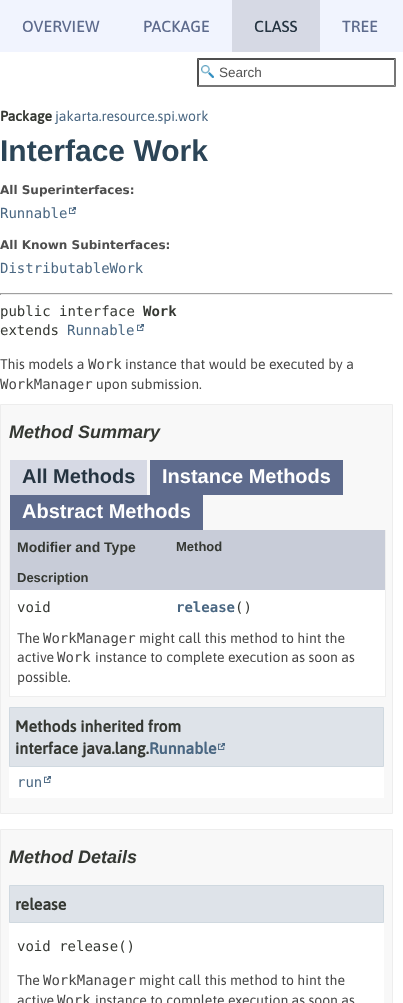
async function draw(canvas) {
  canvas.width = 403;
  canvas.height = 1003;
  const ctx = canvas.getContext('2d');
  ctx.miterLimit = 4;
  ctx.fontKerning = 'normal';
  function label(s, x, y, font, color) {
    ctx.font = font;
    ctx.fillStyle = color;
    ctx.fillText(s, x, y);
  }
  function rect(x, y, w, h, color) {
    ctx.fillStyle = color;
    ctx.fillRect(x, y, w, h);
  }
  async function image(src, x, y, w, h) {
    const img = new Image();
    img.src = src;
    await img.decode();
    ctx.drawImage(img, x, y, w, h);
  }
  let path;

  rect(0, 0, 403, 1003, '#fff');
  rect(0, 0, 403, 52, '#f1f4fe');
  label('OVERVIEW', 22, 32, '500 16px Asap', '#5e6b8d');
  label('PACKAGE', 143, 32, '500 16px Asap', '#5e6b8d');
  rect(232, 0, 88, 52, '#d6d9e4');
  label('CLASS', 254, 32, '500 16px Asap', '#253441');
  label('TREE', 342, 32, '500 16px Asap', '#5e6b8d');
  await image('assets/img1.png', 201, 65, 13, 13);
  ctx.fillStyle = '#4f4f4f';
  path = new Path2D('M197 58H396L394 60H199Z');
  ctx.fill(path);
  ctx.fillStyle = '#767676';
  path = new Path2D('M396 58V87L394 85V60Z');
  ctx.fill(path);
  path = new Path2D('M396 87H197L199 85H394Z');
  ctx.fill(path);
  ctx.fillStyle = '#4f4f4f';
  path = new Path2D('M197 87V58L199 60V85Z');
  ctx.fill(path);
  label('Search', 219, 77, '13.5px Liberation Sans', '#545454');
  label('Package', 0, 121, 'bold 14px Asap', '#353833');
  label('jakarta.resource.spi.work', 55, 121, '14px Asap', '#4a6782');
  label('Interface Work', 0, 161, 'bold 30px Liberation Sans', '#2c4557');
  label('All Superinterfaces:', 0, 194, 'bold 12px DejaVu Sans', '#4e4e4e');
  label('Runnable', 0, 218, '14px DejaVu Sans Mono', '#4a6782');
  await image('assets/img2.png', 69, 207, 7, 7);
  label('All Known Subinterfaces:', 0, 249, 'bold 12px DejaVu Sans', '#4e4e4e');
  label('DistributableWork', 0, 273, '14px DejaVu Sans Mono', '#4a6782');
  rect(0, 293, 393, 1, '#9f9f9f');
  rect(392, 293, 1, 2, '#eee');
  rect(0, 294, 393, 1, '#eee');
  rect(0, 293, 1, 2, '#9f9f9f');
  label('public interface', 0, 316, '14px DejaVu Sans Mono', '#353833');
  label('Work', 143, 316, 'bold 14px DejaVu Sans Mono', '#353833');
  label('extends', 0, 335, '14px DejaVu Sans Mono', '#353833');
  label('Runnable', 67, 335, '14px DejaVu Sans Mono', '#4a6782');
  await image('assets/img2.png', 137, 324, 7, 7);
  label('This models a', 0, 369, '14px Asap', '#474747');
  label('Work', 88, 369, '14px DejaVu Sans Mono', '#474747');
  label('instance that would be executed by a', 125, 369, '14px Asap', '#474747');
  label('WorkManager', 0, 389, '14px DejaVu Sans Mono', '#474747');
  label('upon submission.', 96, 389, '14px Asap', '#474747');
  ctx.fillStyle = '#f8f8f8';
  ctx.beginPath();
  ctx.rect(0.5, 404.5, 392, 409);
  ctx.fill();
  ctx.strokeStyle = '#ededed';
  ctx.stroke();
  label('Method Summary', 9, 438, 'italic bold 18px Liberation Sans', '#353833');
  rect(10, 460, 137, 35, '#d6d9e4');
  label('All Methods', 22, 483, 'bold 20px Liberation Sans', '#253441');
  rect(150, 460, 193, 35, '#5e6b8d');
  label('Instance Methods', 162, 483, 'bold 20px Liberation Sans', '#fff');
  rect(10, 495, 193, 35, '#5e6b8d');
  label('Abstract Methods', 22, 518, 'bold 20px Liberation Sans', '#fff');
  rect(385, 530, 1, 167, '#eee');
  rect(9, 696, 377, 1, '#eee');
  rect(9, 530, 1, 167, '#eee');
  rect(10, 530, 375, 31, '#c8ccd8');
  label('Modifier and Type', 17, 552, 'bold 14px Liberation Sans', '#353833');
  label('Method', 176, 551, 'bold 13px Liberation Sans', '#353833');
  rect(10, 561, 375, 29, '#c8ccd8');
  label('Description', 17, 582, 'bold 13px Liberation Sans', '#353833');
  rect(10, 590, 375, 31, '#fff');
  label('void', 17, 612, '14px DejaVu Sans Mono', '#353833');
  label('release', 176, 612, 'bold 14px DejaVu Sans Mono', '#4a6782');
  label('()', 235, 612, '14px DejaVu Sans Mono', '#353833');
  rect(10, 621, 375, 75, '#fff');
  label('The', 17, 643, '14px Asap', '#474747');
  label('WorkManager', 43, 643, '14px DejaVu Sans Mono', '#474747');
  label('might call this method to hint the', 139, 643, '14px Asap', '#474747');
  label('active', 17, 662, '14px Asap', '#474747');
  label('Work', 57, 662, '14px DejaVu Sans Mono', '#474747');
  label('instance to complete execution as soon as', 95, 662, '14px Asap', '#474747');
  label('possible.', 17, 682, '14px Asap', '#474747');
  rect(9, 767, 375, 31, '#fff');
  ctx.fillStyle = '#dee3e9';
  ctx.beginPath();
  ctx.rect(9.5, 707.5, 374, 59);
  ctx.fill();
  ctx.strokeStyle = '#d0d9e0';
  ctx.stroke();
  label('Methods inherited from', 15, 732, 'bold 16px Asap', '#353833');
  label('interface java.lang.', 15, 754, 'bold 16px Asap', '#353833');
  label('Runnable', 149, 754, 'bold 16px Asap', '#4a6782');
  await image('assets/img3.png', 218, 743, 7, 7);
  label('run', 17, 787, '14px DejaVu Sans Mono', '#4a6782');
  await image('assets/img2.png', 44, 776, 7, 7);
  ctx.fillStyle = '#f8f8f8';
  ctx.beginPath();
  ctx.rect(0.5, 829.5, 392, 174);
  ctx.fill();
  ctx.strokeStyle = '#ededed';
  ctx.stroke();
  label('Method Details', 9, 863, 'italic bold 18px Liberation Sans', '#353833');
  rect(9, 923, 375, 80, '#fff');
  ctx.fillStyle = '#dee3e9';
  ctx.beginPath();
  ctx.rect(9.5, 885.5, 374, 37);
  ctx.fill();
  ctx.strokeStyle = '#d0d9e0';
  ctx.stroke();
  label('release', 15, 910, 'bold 16px Asap', '#353833');
  label('void release()', 17, 951, '14px DejaVu Sans Mono', '#353833');
  label('The', 17, 985, '14px Asap', '#474747');
  label('WorkManager', 43, 985, '14px DejaVu Sans Mono', '#474747');
  label('might call this method to hint the', 139, 985, '14px Asap', '#474747');
  label('active', 17, 1005, '14px Asap', '#474747');
  label('Work', 57, 1005, '14px DejaVu Sans Mono', '#474747');
  label('instance to complete execution as soon as', 95, 1005, '14px Asap', '#474747');
}

draw(document.querySelector('canvas'));
